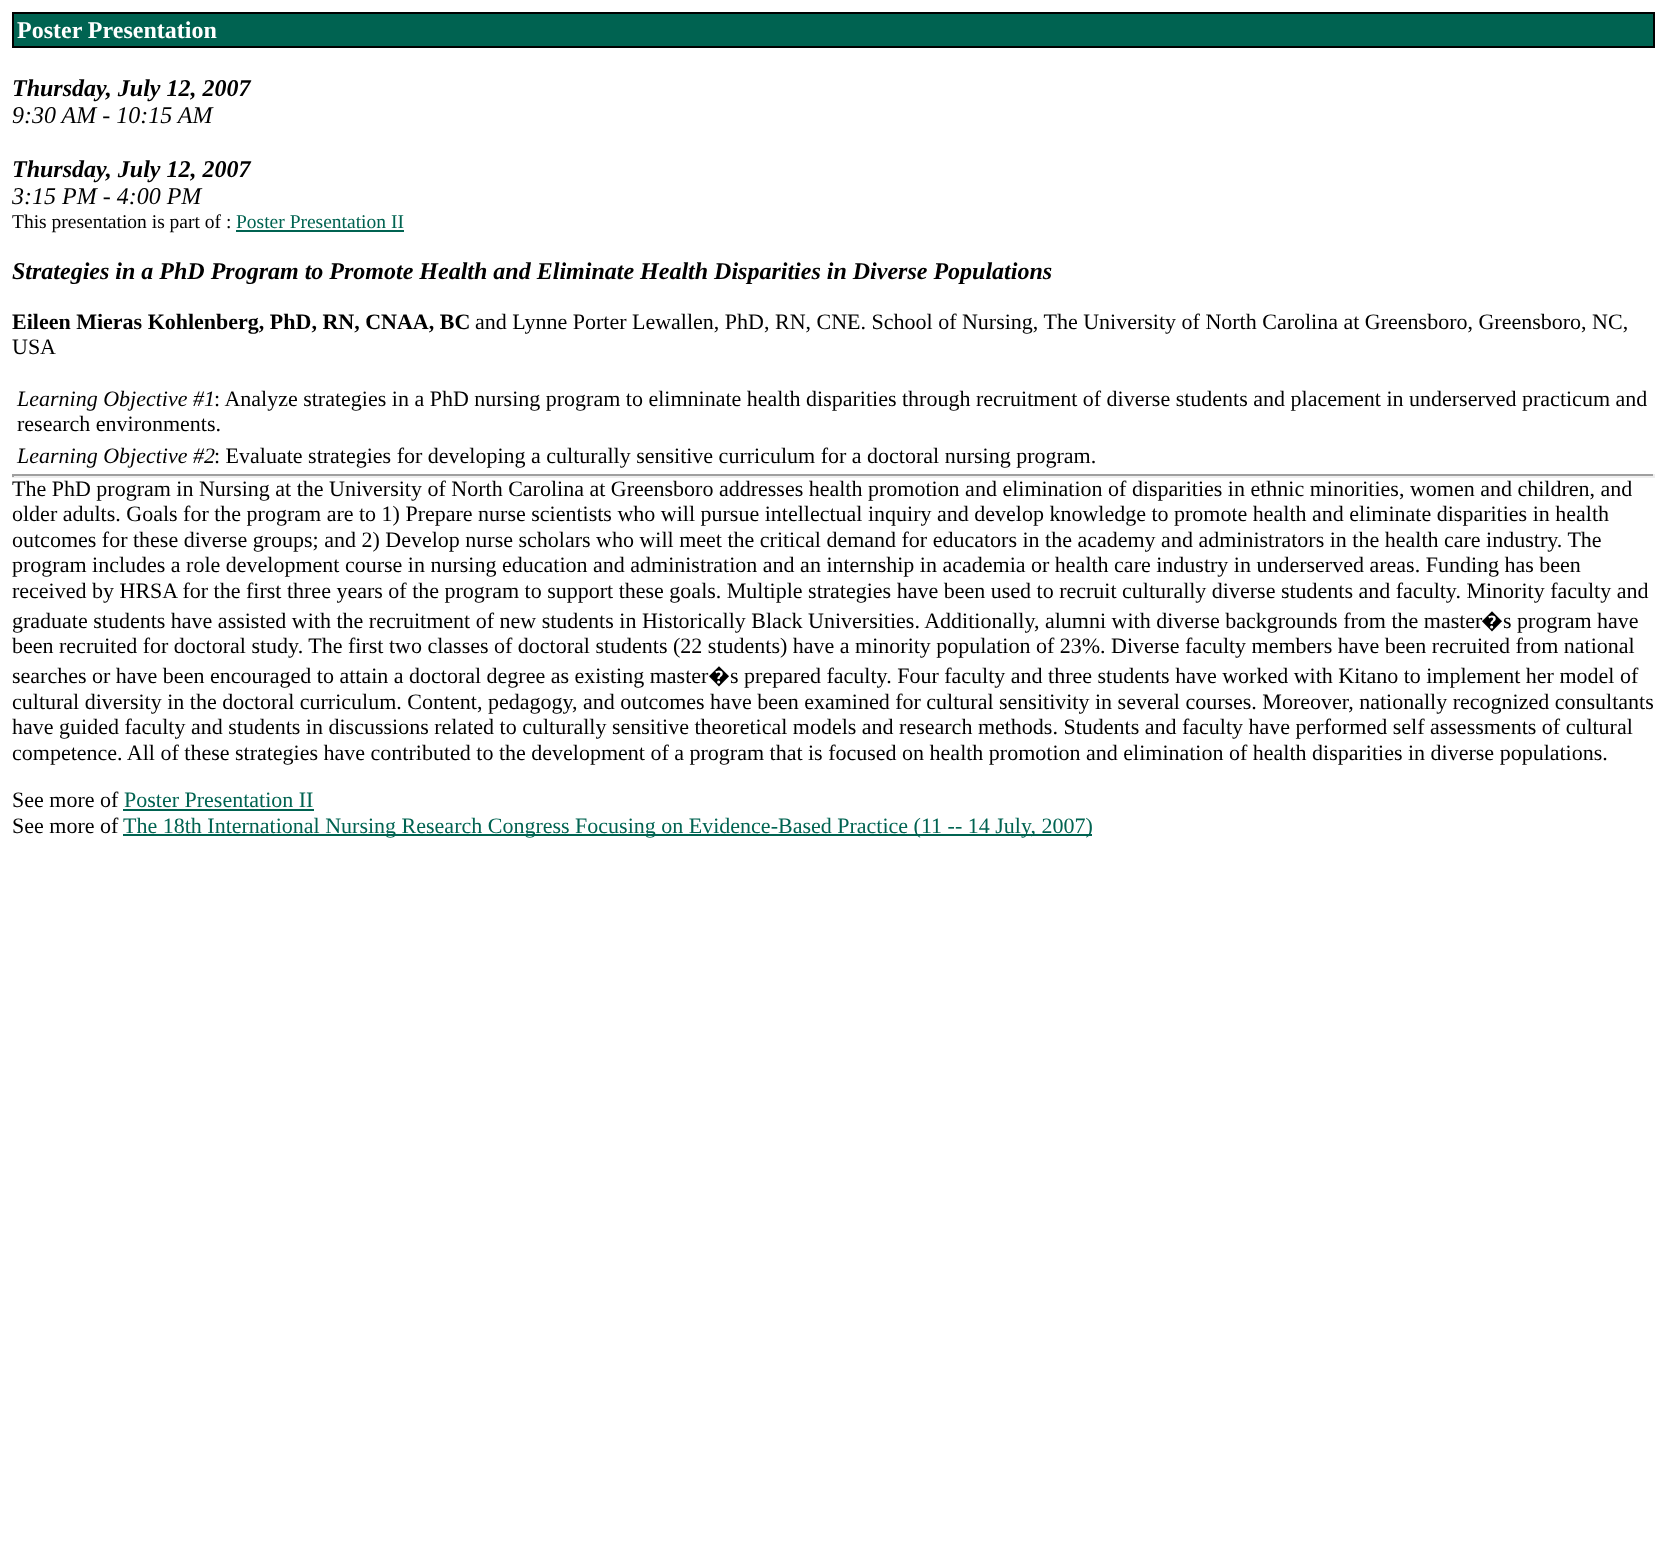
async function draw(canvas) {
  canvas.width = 1666;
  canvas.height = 1544;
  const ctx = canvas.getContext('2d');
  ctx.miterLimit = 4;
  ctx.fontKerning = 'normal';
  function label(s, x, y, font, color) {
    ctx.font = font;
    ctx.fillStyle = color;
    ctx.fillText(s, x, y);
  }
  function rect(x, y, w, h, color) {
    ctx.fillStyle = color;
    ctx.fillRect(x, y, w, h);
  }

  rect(0, 0, 1666, 1544, '#fff');
  ctx.fillStyle = '#006351';
  ctx.beginPath();
  ctx.rect(13, 13, 1641, 34);
  ctx.fill();
  ctx.strokeStyle = '#000';
  ctx.lineWidth = 2;
  ctx.stroke();
  label('Poster Presentation', 17, 38, 'bold 24px Liberation Serif', '#fff');
  label('Thursday, July 12, 2007', 12, 96, 'italic bold 24px Liberation Serif', '#000');
  label('9:30 AM - 10:15 AM', 12, 123, 'italic 24px Liberation Serif', '#000');
  label('Thursday, July 12, 2007', 12, 177, 'italic bold 24px Liberation Serif', '#000');
  label('3:15 PM - 4:00 PM', 12, 204, 'italic 24px Liberation Serif', '#000');
  label('This presentation is part of :', 12, 228, '19.5px Liberation Serif', '#000');
  label('Poster Presentation II', 236, 228, '19.5px Liberation Serif', '#006351');
  rect(236, 230, 168, 2, '#006351');
  label('Strategies in a PhD Program to Promote Health and Eliminate Health Disparities in Diverse Populations', 12, 279, 'italic bold 24px Liberation Serif', '#000');
  label('Eileen Mieras Kohlenberg, PhD, RN, CNAA, BC', 12, 329, 'bold 22px Liberation Serif', '#000');
  label('and Lynne Porter Lewallen, PhD, RN, CNE. School of Nursing, The University of North Carolina at Greensboro, Greensboro, NC,', 475, 329, '22px Liberation Serif', '#000');
  label('USA', 12, 354, '22px Liberation Serif', '#000');
  label('Learning Objective #1', 17, 406, 'italic 22px Liberation Serif', '#000');
  label(': Analyze strategies in a PhD nursing program to elimninate health disparities through recruitment of diverse students and placement in underserved practicum and', 214, 406, '22px Liberation Serif', '#000');
  label('research environments.', 17, 431, '22px Liberation Serif', '#000');
  label('Learning Objective #2', 17, 463, 'italic 22px Liberation Serif', '#000');
  label(': Evaluate strategies for developing a culturally sensitive curriculum for a doctoral nursing program.', 214, 463, '22px Liberation Serif', '#000');
  rect(12, 474, 1643, 2, '#9f9f9f');
  rect(1653, 474, 2, 3, '#eee');
  rect(12, 476, 1643, 2, '#eee');
  rect(12, 474, 2, 3, '#9f9f9f');
  label('The PhD program in Nursing at the University of North Carolina at Greensboro addresses health promotion and elimination of disparities in ethnic minorities, women and children, and', 12, 496, '22px Liberation Serif', '#000');
  label('older adults. Goals for the program are to 1) Prepare nurse scientists who will pursue intellectual inquiry and develop knowledge to promote health and eliminate disparities in health', 12, 521, '22px Liberation Serif', '#000');
  label('outcomes for these diverse groups; and 2) Develop nurse scholars who will meet the critical demand for educators in the academy and administrators in the health care industry. The', 12, 547, '22px Liberation Serif', '#000');
  label('program includes a role development course in nursing education and administration and an internship in academia or health care industry in underserved areas. Funding has been', 12, 572, '22px Liberation Serif', '#000');
  label('received by HRSA for the first three years of the program to support these goals. Multiple strategies have been used to recruit culturally diverse students and faculty. Minority faculty and', 12, 598, '22px Liberation Serif', '#000');
  label('graduate students have assisted with the recruitment of new students in Historically Black Universities. Additionally, alumni with diverse backgrounds from the master', 12, 628, '22px Liberation Serif', '#000');
  label('�', 1481, 628, '22px Noto Sans', '#000');
  label('s program have', 1503, 628, '22px Liberation Serif', '#000');
  label('been recruited for doctoral study. The first two classes of doctoral students (22 students) have a minority population of 23%. Diverse faculty members have been recruited from national', 12, 653, '22px Liberation Serif', '#000');
  label('searches or have been encouraged to attain a doctoral degree as existing master', 12, 683, '22px Liberation Serif', '#000');
  label('�', 708, 683, '22px Noto Sans', '#000');
  label('s prepared faculty. Four faculty and three students have worked with Kitano to implement her model of', 730, 683, '22px Liberation Serif', '#000');
  label('cultural diversity in the doctoral curriculum. Content, pedagogy, and outcomes have been examined for cultural sensitivity in several courses. Moreover, nationally recognized consultants', 12, 709, '22px Liberation Serif', '#000');
  label('have guided faculty and students in discussions related to culturally sensitive theoretical models and research methods. Students and faculty have performed self assessments of cultural', 12, 734, '22px Liberation Serif', '#000');
  label('competence. All of these strategies have contributed to the development of a program that is focused on health promotion and elimination of health disparities in diverse populations.', 12, 760, '22px Liberation Serif', '#000');
  label('See more of', 12, 807, '22px Liberation Serif', '#000');
  label('Poster Presentation II', 124, 807, '22px Liberation Serif', '#006351');
  rect(123, 809, 191, 2, '#006351');
  label('See more of', 12, 833, '22px Liberation Serif', '#000');
  rect(123, 834, 969, 2, '#006351');
  label('The 18th International Nursing Research Congress Focusing on Evidence-Based Practice (11 -- 14 July, 2007)', 123, 833, '22px Liberation Serif', '#006351');
}

draw(document.querySelector('canvas'));
